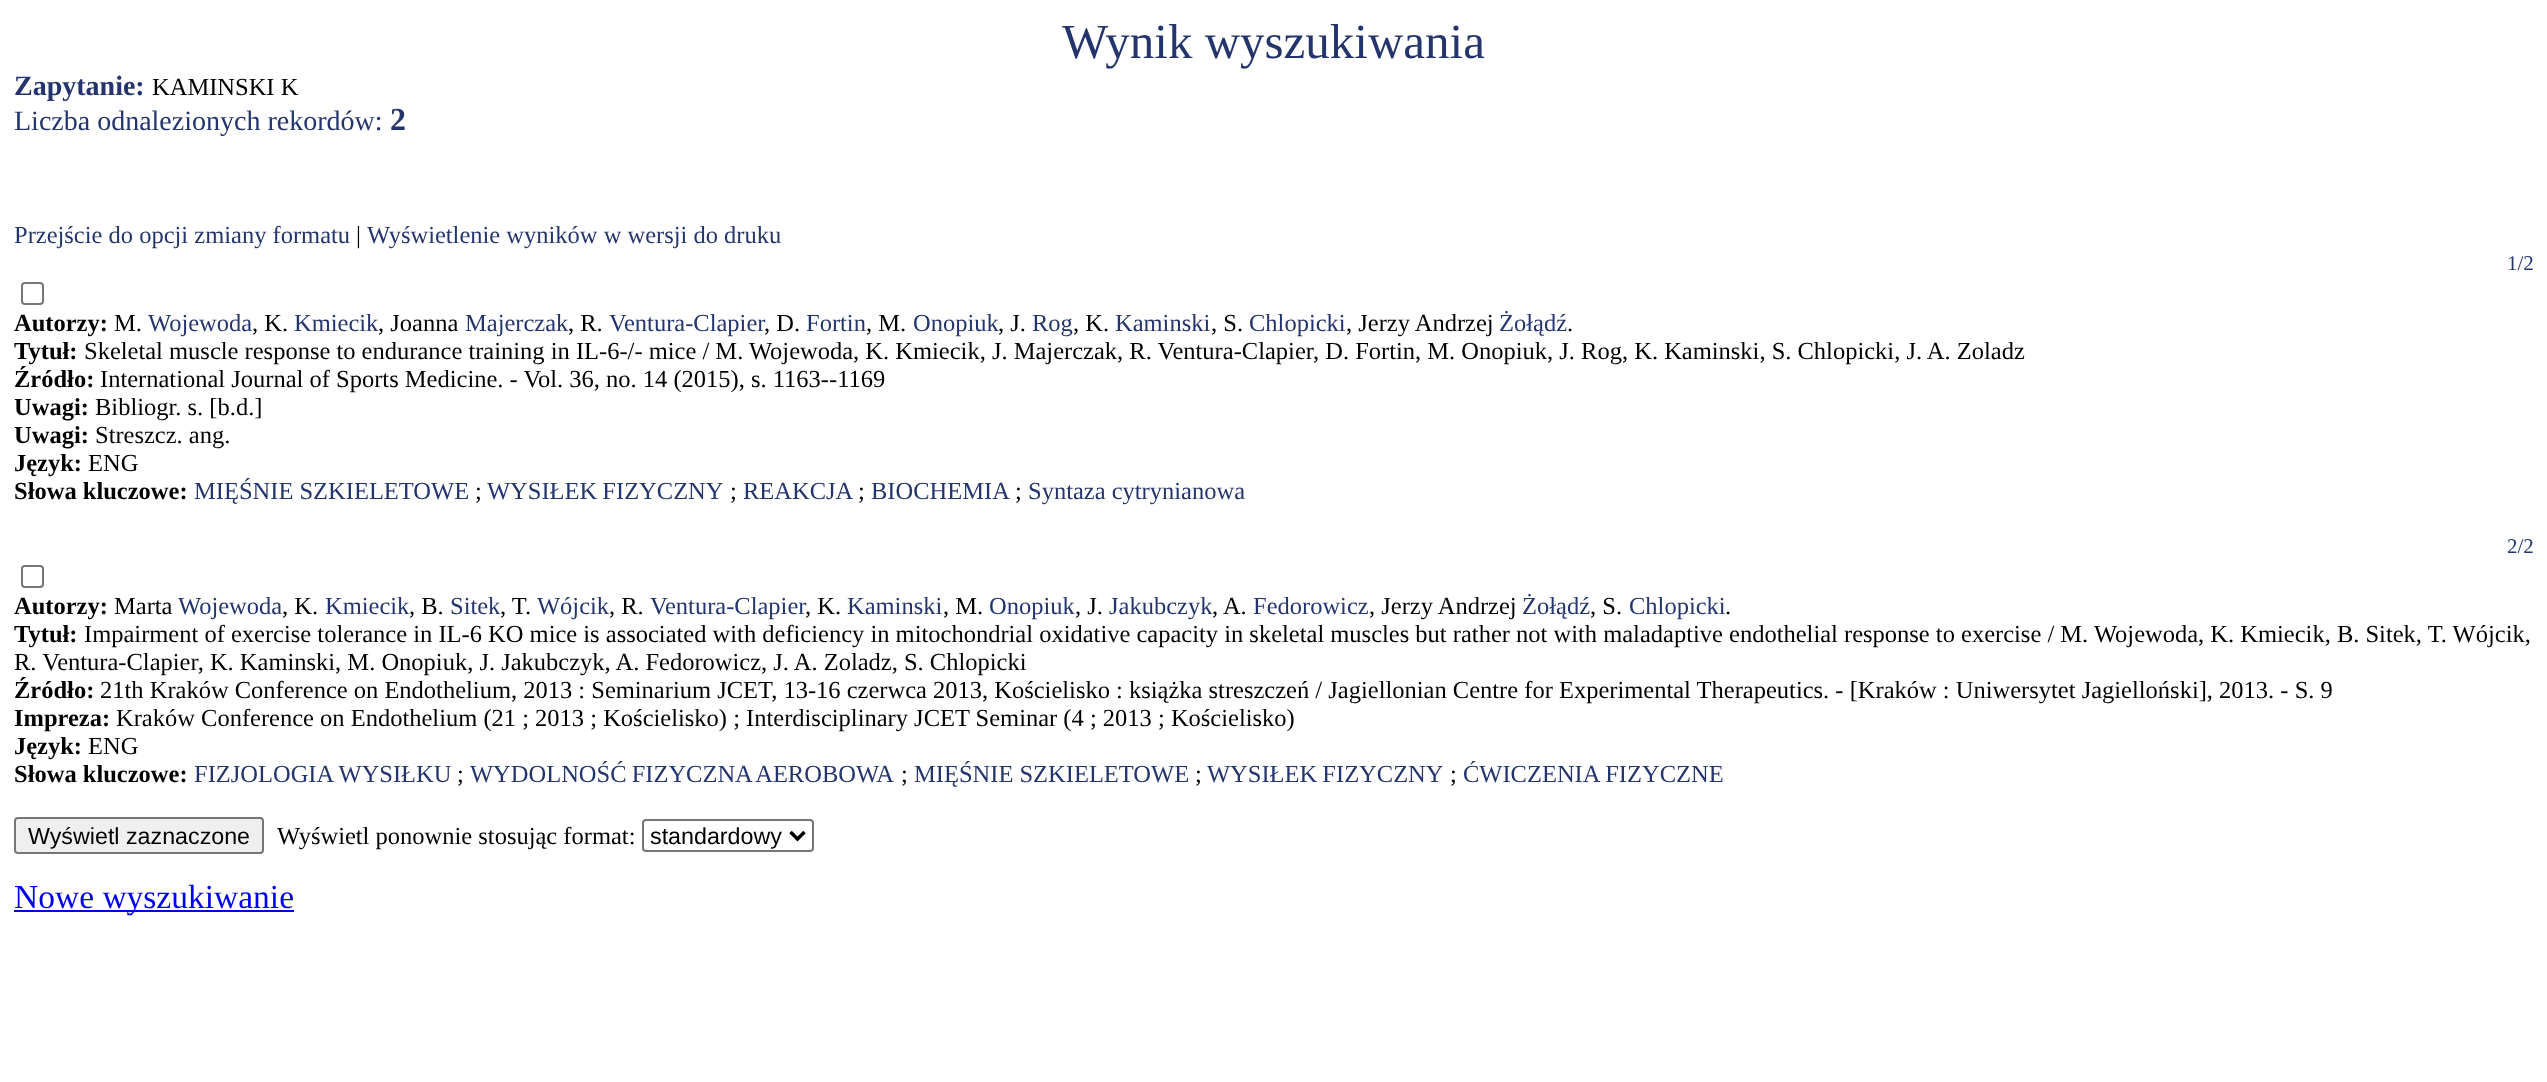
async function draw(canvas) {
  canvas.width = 2547;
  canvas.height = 1082;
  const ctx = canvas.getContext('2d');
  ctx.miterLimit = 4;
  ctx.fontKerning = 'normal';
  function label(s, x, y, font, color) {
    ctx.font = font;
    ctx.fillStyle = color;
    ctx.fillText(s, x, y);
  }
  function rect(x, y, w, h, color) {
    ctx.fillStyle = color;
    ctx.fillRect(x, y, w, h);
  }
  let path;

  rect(0, 0, 2547, 1082, '#fff');
  label('Wynik wyszukiwania', 1062, 58, '49px Liberation Serif', '#24356d');
  label('Zapytanie:', 14, 95, 'bold 28px Liberation Serif', '#24356d');
  label('KAMINSKI K', 152, 95, '24.5px Liberation Serif', '#000');
  label('Liczba odnalezionych rekordów:', 14, 130, '28px Liberation Serif', '#24356d');
  label('2', 390, 130, 'bold 32px Liberation Serif', '#24356d');
  label('Przejście do opcji zmiany formatu', 14, 243, '24.5px Liberation Serif', '#24356d');
  label('|', 356, 243, '24.5px Liberation Serif', '#000');
  label('Wyświetlenie wyników w wersji do druku', 367, 243, '24.5px Liberation Serif', '#24356d');
  label('1/2', 2507, 270, '21px Liberation Serif', '#24356d');
  ctx.beginPath();
  ctx.roundRect(22, 283, 21, 21, 3);
  ctx.strokeStyle = '#767676';
  ctx.lineWidth = 2;
  ctx.stroke();
  label('Autorzy:', 14, 331, 'bold 24.5px Liberation Serif', '#000');
  label('M.', 114, 331, '24.5px Liberation Serif', '#000');
  label('Wojewoda', 148, 331, '24.5px Liberation Serif', '#24356d');
  label(', K.', 252, 331, '24.5px Liberation Serif', '#000');
  label('Kmiecik', 294, 331, '24.5px Liberation Serif', '#24356d');
  label(', Joanna', 378, 331, '24.5px Liberation Serif', '#000');
  label('Majerczak', 465, 331, '24.5px Liberation Serif', '#24356d');
  label(', R.', 568, 331, '24.5px Liberation Serif', '#000');
  label('Ventura-Clapier', 609, 331, '24.5px Liberation Serif', '#24356d');
  label(', D.', 764, 331, '24.5px Liberation Serif', '#000');
  label('Fortin', 806, 331, '24.5px Liberation Serif', '#24356d');
  label(', M.', 866, 331, '24.5px Liberation Serif', '#000');
  label('Onopiuk', 913, 331, '24.5px Liberation Serif', '#24356d');
  label(', J.', 998, 331, '24.5px Liberation Serif', '#000');
  label('Rog', 1032, 331, '24.5px Liberation Serif', '#24356d');
  label(', K.', 1073, 331, '24.5px Liberation Serif', '#000');
  label('Kaminski', 1115, 331, '24.5px Liberation Serif', '#24356d');
  label(', S.', 1211, 331, '24.5px Liberation Serif', '#000');
  label('Chlopicki', 1249, 331, '24.5px Liberation Serif', '#24356d');
  label(', Jerzy Andrzej', 1346, 331, '24.5px Liberation Serif', '#000');
  label('Żołądź', 1499, 331, '24.5px Liberation Serif', '#24356d');
  label('.', 1567, 331, '24.5px Liberation Serif', '#000');
  label('Tytuł:', 14, 359, 'bold 24.5px Liberation Serif', '#000');
  label('Skeletal muscle response to endurance training in IL-6-/- mice / M. Wojewoda, K. Kmiecik, J. Majerczak, R. Ventura-Clapier, D. Fortin, M. Onopiuk, J. Rog, K. Kaminski, S. Chlopicki, J. A. Zoladz', 84, 359, '24.5px Liberation Serif', '#000');
  label('Źródło:', 14, 387, 'bold 24.5px Liberation Serif', '#000');
  label('International Journal of Sports Medicine. - Vol. 36, no. 14 (2015), s. 1163--1169', 100, 387, '24.5px Liberation Serif', '#000');
  label('Uwagi:', 14, 415, 'bold 24.5px Liberation Serif', '#000');
  label('Bibliogr. s. [b.d.]', 95, 415, '24.5px Liberation Serif', '#000');
  label('Uwagi:', 14, 443, 'bold 24.5px Liberation Serif', '#000');
  label('Streszcz. ang.', 95, 443, '24.5px Liberation Serif', '#000');
  label('Język:', 14, 471, 'bold 24.5px Liberation Serif', '#000');
  label('ENG', 88, 471, '24.5px Liberation Serif', '#000');
  label('Słowa kluczowe:', 14, 499, 'bold 24.5px Liberation Serif', '#000');
  label('MIĘŚNIE SZKIELETOWE', 194, 499, '24.5px Liberation Serif', '#24356d');
  label(';', 475, 499, '24.5px Liberation Serif', '#000');
  ctx.wordSpacing = '-1px';
  label('WYSIŁEK FIZYCZNY', 487, 499, '24.5px Liberation Serif', '#24356d');
  ctx.wordSpacing = '0px';
  label(';', 730, 499, '24.5px Liberation Serif', '#000');
  label('REAKCJA', 743, 499, '24.5px Liberation Serif', '#24356d');
  label(';', 858, 499, '24.5px Liberation Serif', '#000');
  label('BIOCHEMIA', 871, 499, '24.5px Liberation Serif', '#24356d');
  label(';', 1015, 499, '24.5px Liberation Serif', '#000');
  label('Syntaza cytrynianowa', 1028, 499, '24.5px Liberation Serif', '#24356d');
  label('2/2', 2507, 553, '21px Liberation Serif', '#24356d');
  ctx.beginPath();
  ctx.roundRect(22, 566, 21, 21, 3);
  ctx.stroke();
  label('Autorzy:', 14, 614, 'bold 24.5px Liberation Serif', '#000');
  label('Marta', 114, 614, '24.5px Liberation Serif', '#000');
  label('Wojewoda', 178, 614, '24.5px Liberation Serif', '#24356d');
  label(', K.', 282, 614, '24.5px Liberation Serif', '#000');
  label('Kmiecik', 325, 614, '24.5px Liberation Serif', '#24356d');
  label(', B.', 409, 614, '24.5px Liberation Serif', '#000');
  label('Sitek', 450, 614, '24.5px Liberation Serif', '#24356d');
  label(', T.', 500, 614, '24.5px Liberation Serif', '#000');
  label('Wójcik', 537, 614, '24.5px Liberation Serif', '#24356d');
  label(', R.', 609, 614, '24.5px Liberation Serif', '#000');
  label('Ventura-Clapier', 650, 614, '24.5px Liberation Serif', '#24356d');
  label(', K.', 805, 614, '24.5px Liberation Serif', '#000');
  label('Kaminski', 847, 614, '24.5px Liberation Serif', '#24356d');
  label(', M.', 943, 614, '24.5px Liberation Serif', '#000');
  label('Onopiuk', 989, 614, '24.5px Liberation Serif', '#24356d');
  label(', J.', 1075, 614, '24.5px Liberation Serif', '#000');
  label('Jakubczyk', 1109, 614, '24.5px Liberation Serif', '#24356d');
  label(', A.', 1212, 614, '24.5px Liberation Serif', '#000');
  label('Fedorowicz', 1253, 614, '24.5px Liberation Serif', '#24356d');
  label(', Jerzy Andrzej', 1369, 614, '24.5px Liberation Serif', '#000');
  label('Żołądź', 1522, 614, '24.5px Liberation Serif', '#24356d');
  label(', S.', 1590, 614, '24.5px Liberation Serif', '#000');
  label('Chlopicki', 1629, 614, '24.5px Liberation Serif', '#24356d');
  label('.', 1725, 614, '24.5px Liberation Serif', '#000');
  label('Tytuł:', 14, 642, 'bold 24.5px Liberation Serif', '#000');
  label('Impairment of exercise tolerance in IL-6 KO mice is associated with deficiency in mitochondrial oxidative capacity in skeletal muscles but rather not with maladaptive endothelial response to exercise / M. Wojewoda, K. Kmiecik, B. Sitek, T. Wójcik,', 84, 642, '24.5px Liberation Serif', '#000');
  label('R. Ventura-Clapier, K. Kaminski, M. Onopiuk, J. Jakubczyk, A. Fedorowicz, J. A. Zoladz, S. Chlopicki', 14, 670, '24.5px Liberation Serif', '#000');
  label('Źródło:', 14, 698, 'bold 24.5px Liberation Serif', '#000');
  label('21th Kraków Conference on Endothelium, 2013 : Seminarium JCET, 13-16 czerwca 2013, Kościelisko : książka streszczeń / Jagiellonian Centre for Experimental Therapeutics. - [Kraków : Uniwersytet Jagielloński], 2013. - S. 9', 100, 698, '24.5px Liberation Serif', '#000');
  label('Impreza:', 14, 726, 'bold 24.5px Liberation Serif', '#000');
  label('Kraków Conference on Endothelium (21 ; 2013 ; Kościelisko) ; Interdisciplinary JCET Seminar (4 ; 2013 ; Kościelisko)', 116, 726, '24.5px Liberation Serif', '#000');
  label('Język:', 14, 754, 'bold 24.5px Liberation Serif', '#000');
  label('ENG', 88, 754, '24.5px Liberation Serif', '#000');
  label('Słowa kluczowe:', 14, 782, 'bold 24.5px Liberation Serif', '#000');
  label('FIZJOLOGIA WYSIŁKU', 194, 782, '24.5px Liberation Serif', '#24356d');
  label(';', 457, 782, '24.5px Liberation Serif', '#000');
  ctx.wordSpacing = '-1px';
  label('WYDOLNOŚĆ FIZYCZNA AEROBOWA', 470, 782, '24.5px Liberation Serif', '#24356d');
  ctx.wordSpacing = '0px';
  label(';', 901, 782, '24.5px Liberation Serif', '#000');
  label('MIĘŚNIE SZKIELETOWE', 914, 782, '24.5px Liberation Serif', '#24356d');
  label(';', 1195, 782, '24.5px Liberation Serif', '#000');
  ctx.wordSpacing = '-1px';
  label('WYSIŁEK FIZYCZNY', 1207, 782, '24.5px Liberation Serif', '#24356d');
  ctx.wordSpacing = '0px';
  label(';', 1450, 782, '24.5px Liberation Serif', '#000');
  label('ĆWICZENIA FIZYCZNE', 1463, 782, '24.5px Liberation Serif', '#24356d');
  ctx.fillStyle = '#efefef';
  ctx.beginPath();
  ctx.roundRect(15, 818, 248, 35, 3);
  ctx.fill();
  ctx.stroke();
  label('Wyświetl zaznaczone', 28, 844, '23.25px Liberation Sans', '#000');
  label('Wyświetl ponownie stosując format:', 277, 844, '24.5px Liberation Serif', '#000');
  ctx.beginPath();
  ctx.roundRect(643, 820, 170, 31, 3);
  ctx.stroke();
  path = new Path2D('M790.5 832L797.5 839L804.5 832');
  ctx.strokeStyle = '#000';
  ctx.lineWidth = 3.5;
  ctx.stroke(path);
  label('standardowy', 650, 844, '23.25px Liberation Sans', '#000');
  rect(14, 910, 280, 2, '#00e');
  label('Nowe wyszukiwanie', 14, 908, '33.5px Liberation Serif', '#00e');
}

draw(document.querySelector('canvas'));
